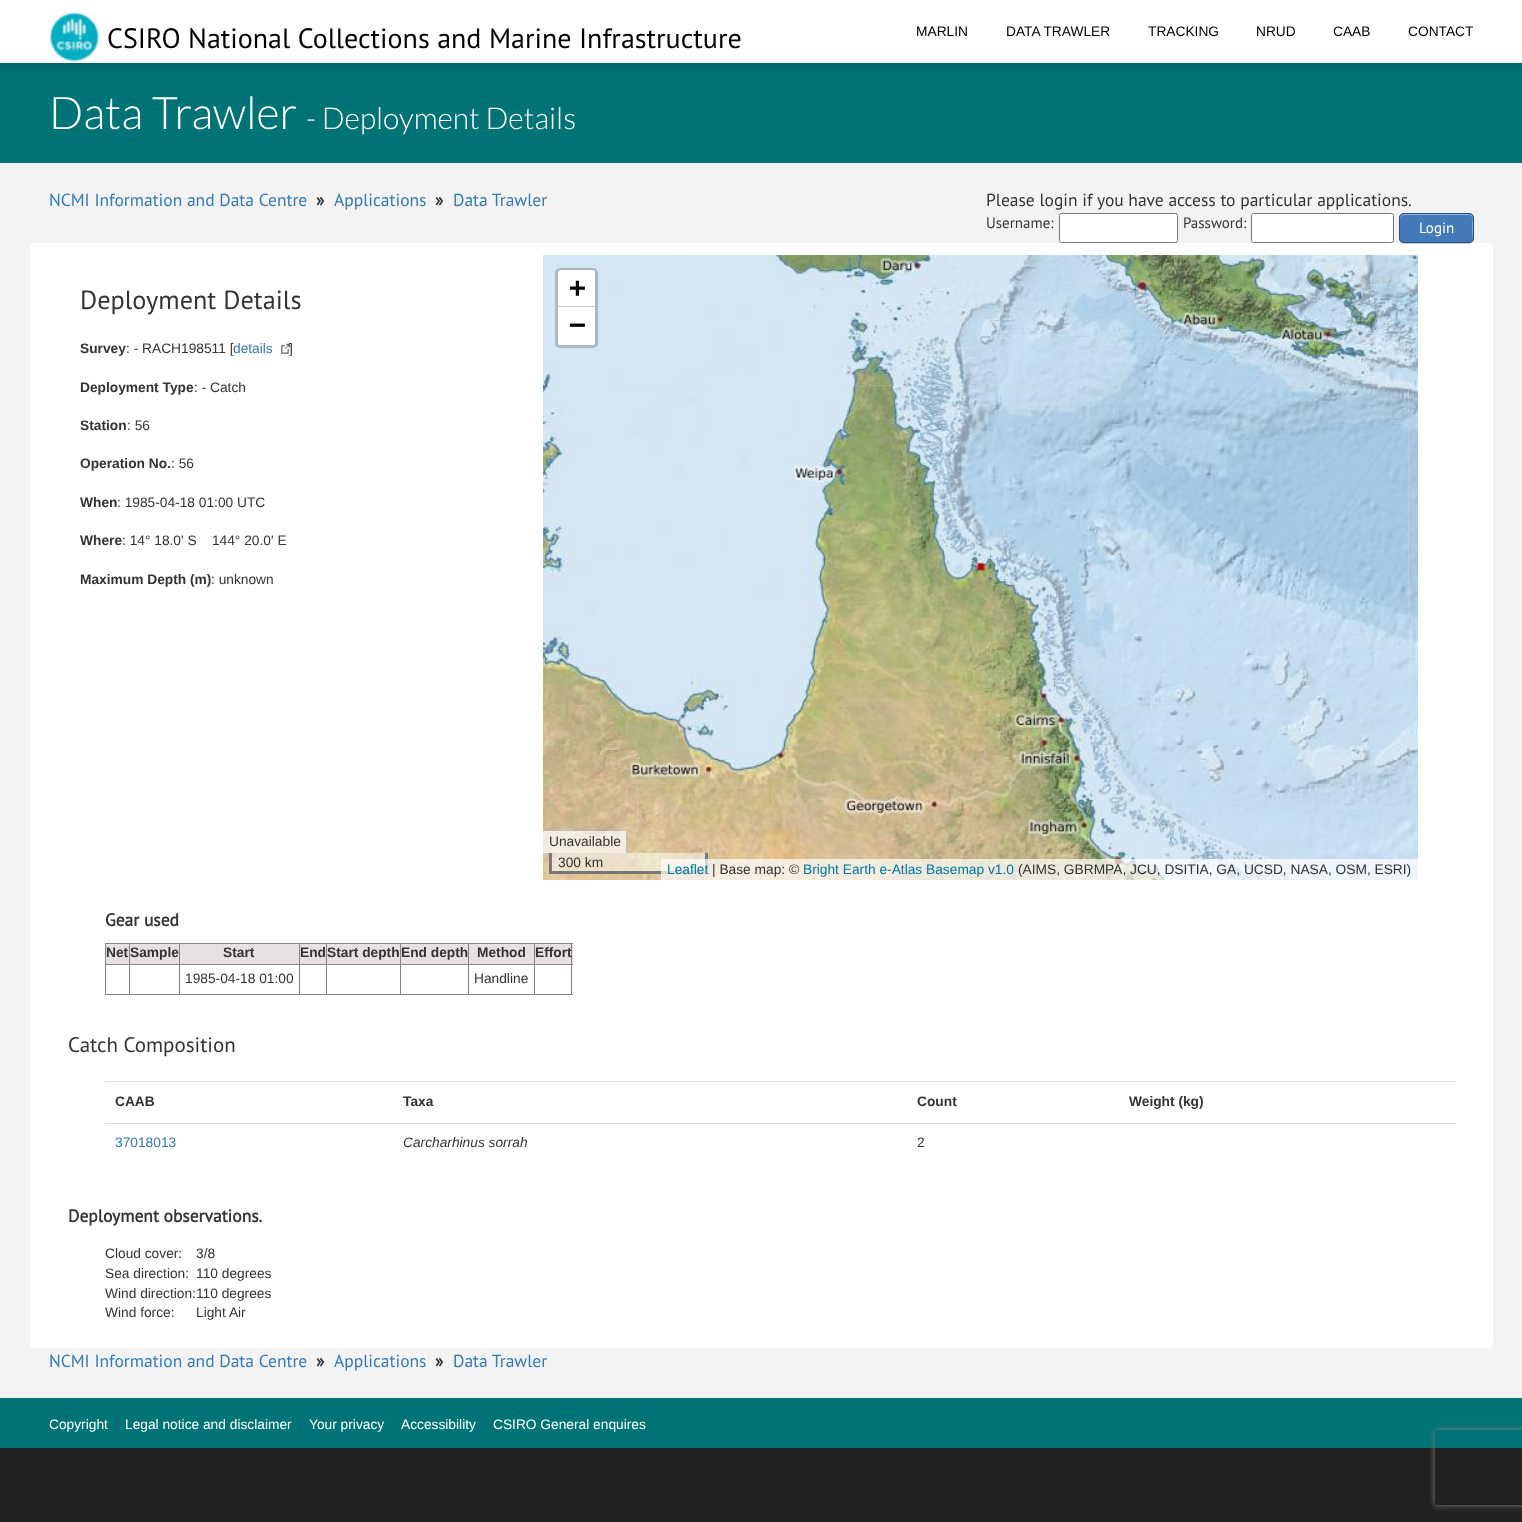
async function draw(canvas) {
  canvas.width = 1522;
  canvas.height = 1522;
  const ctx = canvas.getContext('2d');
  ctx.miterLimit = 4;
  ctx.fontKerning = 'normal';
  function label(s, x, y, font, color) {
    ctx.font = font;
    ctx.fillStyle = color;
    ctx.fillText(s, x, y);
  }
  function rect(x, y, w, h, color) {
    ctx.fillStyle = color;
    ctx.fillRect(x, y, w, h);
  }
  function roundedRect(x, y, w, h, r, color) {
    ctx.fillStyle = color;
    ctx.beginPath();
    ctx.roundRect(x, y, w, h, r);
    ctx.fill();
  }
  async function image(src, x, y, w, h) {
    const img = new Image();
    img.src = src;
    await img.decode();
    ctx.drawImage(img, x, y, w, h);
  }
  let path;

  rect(0, 0, 1522, 1522, '#222');
  rect(0, 163, 1522, 1235, '#f3f3f3');
  rect(0, 63, 1522, 100, '#007377');
  ctx.fillStyle = '#00000033';
  ctx.filter = 'blur(6px)';
  ctx.beginPath();
  ctx.rect(0, 3, 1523, 62);
  ctx.fill();
  ctx.filter = 'none';
  rect(0, 0, 1522, 63, '#fff');
  await image('assets/img1.png', 49, 12, 51, 50);
  label('CSIRO National Collections and Marine Infrastructure', 107, 48, '28px PT Sans', '#000');
  label('MARLIN', 916, 36, '13.75px Liberation Sans', '#000');
  label('DATA TRAWLER', 1006, 36, '13.75px Liberation Sans', '#000');
  label('TRACKING', 1148, 36, '13.75px Liberation Sans', '#000');
  label('NRUD', 1256, 36, '13.75px Liberation Sans', '#000');
  label('CAAB', 1333, 36, '13.75px Liberation Sans', '#000');
  label('CONTACT', 1408, 36, '13.75px Liberation Sans', '#000');
  label('Data Trawler', 49, 129, '300 45px Lato', '#fff');
  label('- Deployment Details', 306, 129, '300 30px Lato', '#fff');
  label('NCMI Information and Data Centre', 49, 206, '17.5px PT Sans', '#337ab7');
  label('»', 316, 206, 'bold 17.5px PT Sans', '#333');
  label('Applications', 334, 206, '17.5px PT Sans', '#337ab7');
  label('»', 435, 206, 'bold 17.5px PT Sans', '#333');
  label('Data Trawler', 453, 206, '17.5px PT Sans', '#337ab7');
  label('Please login if you have access to particular applications.', 986, 206, '17.5px PT Sans', '#333');
  label('Username:', 986, 228, '15px PT Sans', '#333');
  ctx.fillStyle = '#fff';
  ctx.beginPath();
  ctx.roundRect(1059.5, 213.5, 118, 29, 2);
  ctx.fill();
  ctx.strokeStyle = '#767676';
  ctx.stroke();
  label('Password:', 1183, 228, '15px PT Sans', '#333');
  ctx.fillStyle = '#fff';
  ctx.beginPath();
  ctx.roundRect(1251.5, 213.5, 142, 29, 2);
  ctx.fill();
  ctx.stroke();
  roundedRect(30, 243, 1463, 1105, 5, '#fff');
  ctx.fillStyle = '#00000033';
  ctx.filter = 'blur(0.5px)';
  ctx.beginPath();
  ctx.roundRect(1399, 214, 75, 30, 5);
  ctx.fill();
  ctx.filter = 'none';
  roundedRect(1399, 213, 75, 30, 5, '#4479ba');
  ctx.fillStyle = '#8fafd6';
  path = new Path2D('M1404 215H1470C1473 217 1473 221 1472 223V225C1472 233 1473 237 1472 240C1474 237 1473 230 1473 228C1473 212 1474 214 1458 214H1415C1413 214 1401 212 1400 217V219C1400 217 1402 215 1404 215Z');
  ctx.fill(path);
  ctx.beginPath();
  ctx.roundRect(1399.5, 213.5, 74, 29, 4.5);
  ctx.strokeStyle = '#20538d';
  ctx.stroke();
  label('Login', 1419, 233, '15px PT Sans', '#fff');
  rect(0, 1398, 1522, 50, '#007377');
  ctx.save();
  path = new Path2D('M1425 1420H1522V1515H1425ZM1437.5 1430H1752.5C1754 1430 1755 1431 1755 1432.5V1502.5C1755 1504 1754 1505 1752.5 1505H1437.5C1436 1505 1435 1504 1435 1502.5V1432.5C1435 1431 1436 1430 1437.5 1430Z');
  ctx.clip(path, 'evenodd');
  ctx.fillStyle = '#808080';
  ctx.filter = 'blur(3px)';
  ctx.beginPath();
  ctx.roundRect(1435, 1430, 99, 75, 2.5);
  ctx.fill();
  ctx.filter = 'none';
  ctx.restore();
  label('Deployment Details', 80, 309, '26.25px PT Sans', '#333');
  label('Survey', 80, 353, 'bold 13.75px Liberation Sans', '#333');
  label(': - RACH198511 [', 126, 353, '13.75px Liberation Sans', '#333');
  label('details', 233, 353, '13.75px Liberation Sans', '#337ab7');
  await image('assets/img2.png', 281, 343, 9, 11);
  label(']', 289, 353, '13.75px Liberation Sans', '#333');
  label('Deployment Type', 80, 392, 'bold 13.75px Liberation Sans', '#333');
  label(': - Catch', 194, 392, '13.75px Liberation Sans', '#333');
  label('Station', 80, 430, 'bold 13.75px Liberation Sans', '#333');
  label(': 56', 127, 430, '13.75px Liberation Sans', '#333');
  label('Operation No.', 80, 468, 'bold 13.75px Liberation Sans', '#333');
  label(': 56', 171, 468, '13.75px Liberation Sans', '#333');
  label('When', 80, 507, 'bold 13.75px Liberation Sans', '#333');
  label(': 1985-04-18 01:00 UTC', 117, 507, '13.75px Liberation Sans', '#333');
  label('Where', 80, 545, 'bold 13.75px Liberation Sans', '#333');
  label(': 14° 18.0\' S    144° 20.0\' E', 122, 545, '13.75px Liberation Sans', '#333');
  label('Maximum Depth (m)', 80, 584, 'bold 13.75px Liberation Sans', '#333');
  label(': unknown', 211, 584, '13.75px Liberation Sans', '#333');
  rect(543, 385, 875, 321, '#ddd');
  await image('assets/img3.png', 543, 255, 226, 130);
  await image('assets/img4.png', 769, 255, 320, 130);
  await image('assets/img5.png', 1089, 255, 320, 130);
  await image('assets/img6.png', 1409, 255, 9, 130);
  await image('assets/img8.png', 768, 385, 321, 320);
  await image('assets/img7.png', 543, 385, 226, 320);
  await image('assets/img9.png', 1088, 385, 321, 320);
  await image('assets/img10.png', 1409, 385, 9, 320);
  await image('assets/img11.png', 543, 704, 226, 176);
  await image('assets/img12.png', 769, 705, 320, 175);
  await image('assets/img13.png', 1089, 705, 320, 175);
  await image('assets/img14.png', 1409, 705, 9, 175);
  await image('assets/img15.png', 976, 562, 10, 9);
  ctx.beginPath();
  ctx.roundRect(556.5, 269.5, 40, 77, 3.5);
  ctx.strokeStyle = '#aab9c3';
  ctx.lineWidth = 3;
  ctx.stroke();
  ctx.fillStyle = '#fff';
  ctx.beginPath();
  ctx.roundRect(558, 270, 37, 38, [2.5, 2.5, 0, 0]);
  ctx.fill();
  rect(558, 306, 37, 1, '#ccc');
  label('+', 569, 297, 'bold 28px DejaVu Sans Mono', '#000');
  ctx.fillStyle = '#fff';
  ctx.beginPath();
  ctx.roundRect(558, 308, 37, 37, [0, 0, 2.5, 2.5]);
  ctx.fill();
  label('−', 569, 334, 'bold 28px DejaVu Sans Mono', '#000');
  ctx.save();
  ctx.beginPath();
  ctx.rect(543, 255, 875, 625);
  ctx.clip();
  path = new Path2D('M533 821H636V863H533ZM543 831H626V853H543Z');
  ctx.clip(path, 'evenodd');
  ctx.fillStyle = '#bbb';
  ctx.filter = 'blur(3px)';
  ctx.beginPath();
  ctx.rect(543, 831, 83, 22);
  ctx.fill();
  ctx.filter = 'none';
  ctx.restore();
  rect(543, 831, 83, 22, '#ffffffb3');
  label('Unavailable', 549, 846, '13.75px Liberation Sans', '#333');
  rect(552, 853, 153, 18, '#ffffff80');
  rect(705, 853, 3, 21, '#777');
  rect(549, 871, 159, 3, '#777');
  rect(549, 853, 3, 21, '#777');
  label('300 km', 558, 867, '13.75px Liberation Sans', '#333');
  rect(661, 859, 757, 21, '#ffffffb3');
  label('Leaflet', 667, 874, '13.75px Liberation Sans', '#0078a8');
  label('| Base map: ©', 712, 874, '13.75px Liberation Sans', '#333');
  label('Bright Earth e-Atlas Basemap v1.0', 803, 874, '13.75px Liberation Sans', '#0078a8');
  label('(AIMS, GBRMPA, JCU, DSITIA, GA, UCSD, NASA, OSM, ESRI)', 1018, 874, '13.75px Liberation Sans', '#333');
  label('Gear used', 105, 926, 'bold 17.5px PT Sans', '#333');
  rect(106, 944, 23, 20, '#e8e1e1');
  rect(534, 943, 39, 1, '#858585');
  rect(534, 964, 39, 1, '#858585');
  rect(571, 964, 1, 31, '#858585');
  rect(534, 994, 39, 1, '#858585');
  rect(534, 964, 1, 31, '#858585');
  rect(468, 964, 67, 1, '#858585');
  rect(534, 943, 1, 22, '#858585');
  rect(468, 943, 67, 1, '#858585');
  rect(468, 994, 67, 1, '#858585');
  rect(468, 964, 1, 31, '#858585');
  rect(400, 964, 69, 1, '#858585');
  rect(468, 943, 1, 22, '#858585');
  rect(400, 943, 69, 1, '#858585');
  rect(400, 994, 69, 1, '#858585');
  rect(400, 964, 1, 31, '#858585');
  rect(326, 964, 75, 1, '#858585');
  rect(400, 943, 1, 22, '#858585');
  rect(326, 943, 75, 1, '#858585');
  rect(326, 994, 75, 1, '#858585');
  rect(326, 964, 1, 31, '#858585');
  rect(299, 964, 29, 1, '#858585');
  rect(326, 943, 1, 22, '#858585');
  rect(299, 943, 29, 1, '#858585');
  rect(299, 994, 29, 1, '#858585');
  rect(299, 964, 1, 31, '#858585');
  rect(179, 964, 121, 1, '#858585');
  rect(299, 943, 1, 22, '#858585');
  rect(179, 943, 121, 1, '#858585');
  rect(179, 994, 121, 1, '#858585');
  rect(179, 964, 1, 31, '#858585');
  rect(129, 964, 51, 1, '#858585');
  rect(179, 943, 1, 22, '#858585');
  rect(129, 943, 51, 1, '#858585');
  rect(129, 994, 51, 1, '#858585');
  rect(129, 964, 1, 31, '#858585');
  rect(105, 964, 25, 1, '#858585');
  rect(129, 943, 1, 22, '#858585');
  rect(105, 943, 25, 1, '#858585');
  rect(105, 994, 25, 1, '#858585');
  rect(105, 964, 1, 31, '#858585');
  rect(105, 943, 1, 22, '#858585');
  label('Net', 106, 957, 'bold 13.75px Liberation Sans', '#333');
  rect(130, 944, 49, 20, '#e8e1e1');
  label('Sample', 130, 957, 'bold 13.75px Liberation Sans', '#333');
  rect(180, 944, 119, 20, '#e8e1e1');
  label('Start', 223, 957, 'bold 13.75px Liberation Sans', '#333');
  rect(300, 944, 26, 20, '#e8e1e1');
  label('End', 300, 957, 'bold 13.75px Liberation Sans', '#333');
  rect(327, 944, 73, 20, '#e8e1e1');
  label('Start depth', 327, 957, 'bold 13.75px Liberation Sans', '#333');
  rect(401, 944, 67, 20, '#e8e1e1');
  label('End depth', 401, 957, 'bold 13.75px Liberation Sans', '#333');
  rect(469, 944, 65, 20, '#e8e1e1');
  label('Method', 477, 957, 'bold 13.75px Liberation Sans', '#333');
  rect(535, 944, 38, 20, '#e8e1e1');
  rect(571, 943, 1, 22, '#858585');
  label('Effort', 535, 957, 'bold 13.75px Liberation Sans', '#333');
  label('1985-04-18 01:00', 185, 983, '13.75px Liberation Sans', '#333');
  label('Handline', 474, 983, '13.75px Liberation Sans', '#333');
  label('Catch Composition', 68, 1052, '21px PT Sans', '#333');
  label('CAAB', 115, 1106, 'bold 13.75px Liberation Sans', '#333');
  label('Taxa', 403, 1106, 'bold 13.75px Liberation Sans', '#333');
  label('Count', 917, 1106, 'bold 13.75px Liberation Sans', '#333');
  rect(105, 1081, 1351, 1, '#ddd');
  label('Weight (kg)', 1129, 1106, 'bold 13.75px Liberation Sans', '#333');
  rect(105, 1123, 1351, 1, '#ddd');
  label('37018013', 115, 1147, '13.75px Liberation Sans', '#337ab7');
  label('Carcharhinus sorrah', 403, 1147, 'italic 13.75px Liberation Sans', '#333');
  label('2', 917, 1147, '13.75px Liberation Sans', '#333');
  label('Deployment observations.', 68, 1222, 'bold 17.5px PT Sans', '#333');
  label('Cloud cover:', 105, 1258, '13.75px Liberation Sans', '#333');
  label('3/8', 196, 1258, '13.75px Liberation Sans', '#333');
  label('Sea direction:', 105, 1278, '13.75px Liberation Sans', '#333');
  label('110 degrees', 196, 1278, '13.75px Liberation Sans', '#333');
  label('Wind direction:110 degrees', 105, 1298, '13.75px Liberation Sans', '#333');
  label('Wind force:', 105, 1317, '13.75px Liberation Sans', '#333');
  label('Light Air', 196, 1317, '13.75px Liberation Sans', '#333');
  label('NCMI Information and Data Centre', 49, 1367, '17.5px PT Sans', '#337ab7');
  label('»', 316, 1367, 'bold 17.5px PT Sans', '#333');
  label('Applications', 334, 1367, '17.5px PT Sans', '#337ab7');
  label('»', 435, 1367, 'bold 17.5px PT Sans', '#333');
  label('Data Trawler', 453, 1367, '17.5px PT Sans', '#337ab7');
  label('Copyright', 49, 1429, '13.75px Liberation Sans', '#fff');
  label('Legal notice and disclaimer', 125, 1429, '13.75px Liberation Sans', '#fff');
  label('Your privacy', 309, 1429, '13.75px Liberation Sans', '#fff');
  label('Accessibility', 401, 1429, '13.75px Liberation Sans', '#fff');
  label('CSIRO General enquires', 493, 1429, '13.75px Liberation Sans', '#fff');
}

draw(document.querySelector('canvas'));
